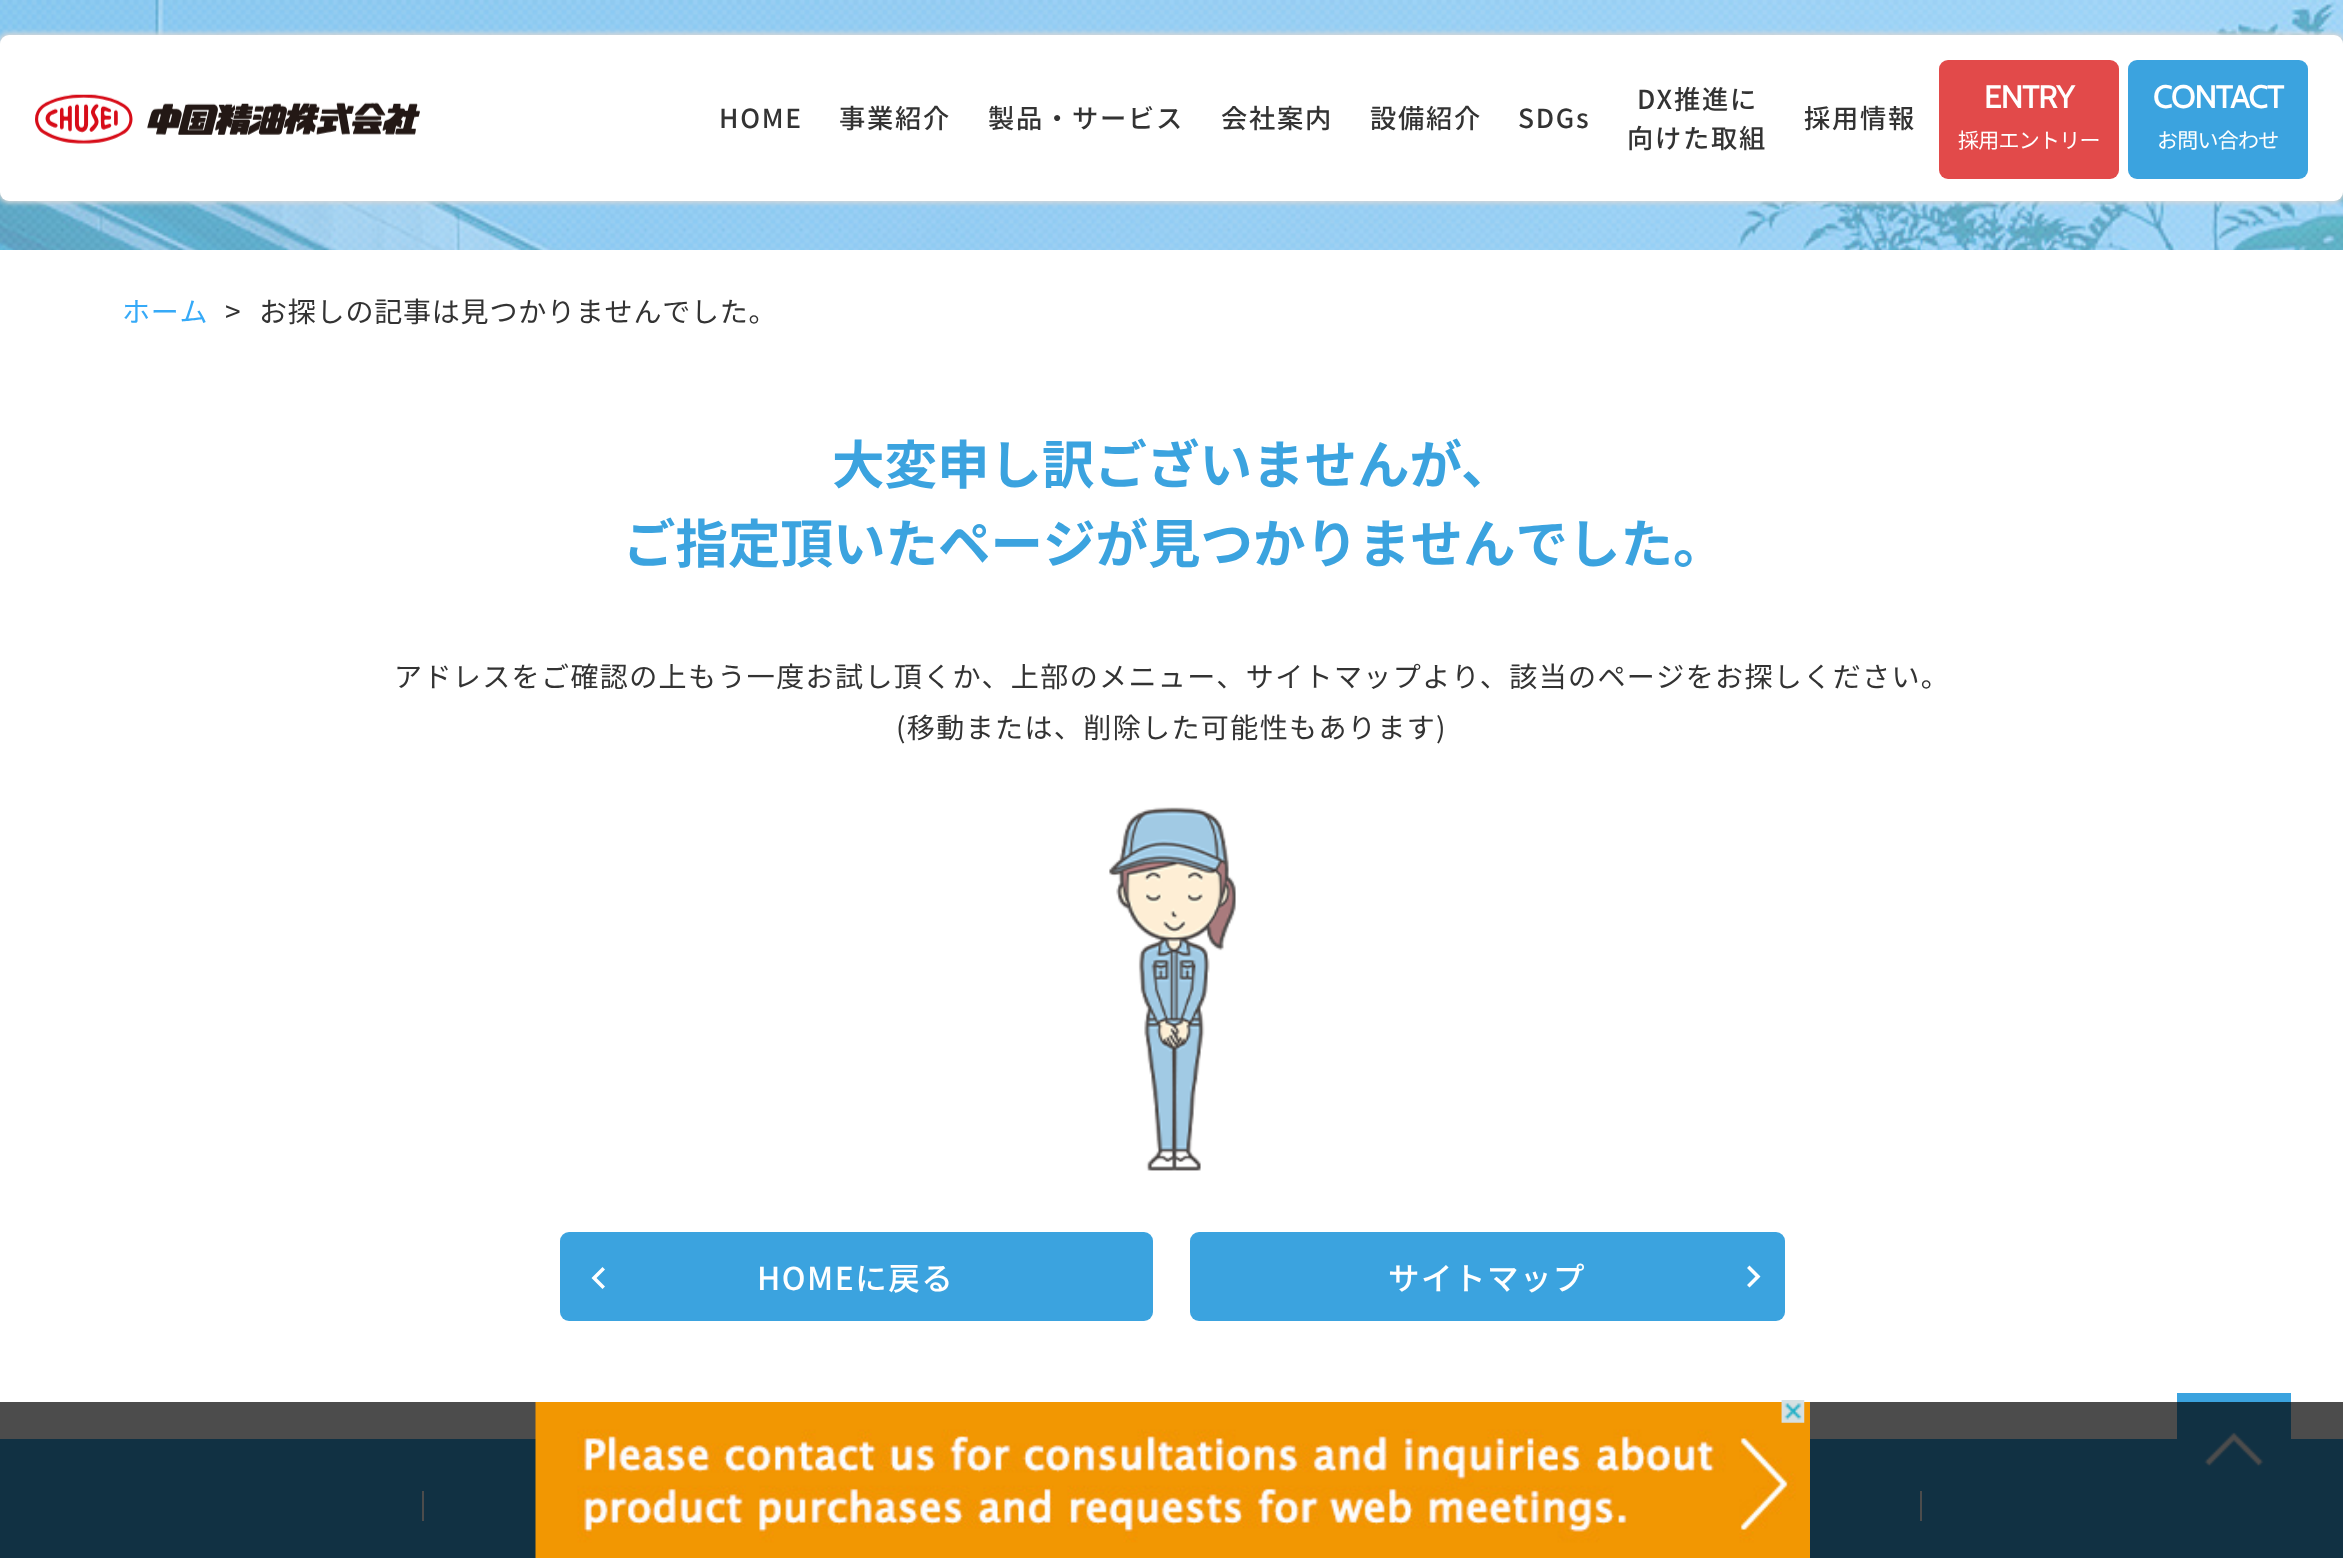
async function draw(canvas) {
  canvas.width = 2343;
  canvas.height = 1558;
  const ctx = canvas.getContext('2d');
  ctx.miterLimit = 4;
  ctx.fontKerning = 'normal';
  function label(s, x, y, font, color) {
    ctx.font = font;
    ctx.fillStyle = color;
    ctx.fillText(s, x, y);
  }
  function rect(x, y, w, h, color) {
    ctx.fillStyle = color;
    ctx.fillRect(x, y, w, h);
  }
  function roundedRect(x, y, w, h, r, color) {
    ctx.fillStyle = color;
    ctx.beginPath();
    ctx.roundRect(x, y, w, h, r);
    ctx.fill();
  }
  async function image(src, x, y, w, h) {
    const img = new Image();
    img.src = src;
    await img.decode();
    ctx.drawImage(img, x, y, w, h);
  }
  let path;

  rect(0, 0, 2343, 1558, '#fff');
  await image('assets/img2.png', 0, 0, 2343, 250);
  ctx.fillStyle = '#d7d7d7';
  ctx.filter = 'blur(2.5px)';
  ctx.beginPath();
  ctx.roundRect(-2, 33, 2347, 170, 11);
  ctx.fill();
  ctx.filter = 'none';
  roundedRect(0, 35, 2343, 166, 9, '#fff');
  await image('assets/img1.png', 35, 94, 385, 50);
  ctx.letterSpacing = '1.75px';
  label('HOME', 719, 128, '500 26.25px Noto Sans CJK JP', '#333');
  label('事業紹介', 839, 128, '500 26.25px Noto Sans CJK JP', '#333');
  label('製品・サービス', 988, 128, '500 26.25px Noto Sans CJK JP', '#333');
  label('会社案内', 1221, 128, '500 26.25px Noto Sans CJK JP', '#333');
  label('設備紹介', 1370, 128, '500 26.25px Noto Sans CJK JP', '#333');
  label('SDGs', 1518, 128, '500 26.25px Noto Sans CJK JP', '#333');
  label('DX推進に', 1637, 109, '500 26.25px Noto Sans CJK JP', '#333');
  label('向けた取組', 1627, 148, '500 26.25px Noto Sans CJK JP', '#333');
  label('採用情報', 1804, 128, '500 26.25px Noto Sans CJK JP', '#333');
  roundedRect(1939, 60, 180, 119, 9, '#e24a4a');
  ctx.letterSpacing = '-1.5px';
  label('ENTRY', 1984, 108, '500 32.5px Cabin', '#fff');
  ctx.letterSpacing = '-0.75px';
  label('採用エントリー', 1958, 148, '21px Noto Sans CJK JP', '#fff');
  roundedRect(2128, 60, 180, 119, 9, '#3ba3df');
  ctx.letterSpacing = '-1.5px';
  label('CONTACT', 2153, 108, '500 32.5px Cabin', '#fff');
  ctx.letterSpacing = '-0.75px';
  label('お問い合わせ', 2157, 148, '21px Noto Sans CJK JP', '#fff');
  ctx.letterSpacing = '0.8px';
  label('ホーム', 122, 322, '28px Noto Sans CJK JP', '#36aaf8');
  label('>', 225, 322, '28px Noto Sans CJK JP', '#333');
  label('お探しの記事は見つかりませんでした。', 259, 322, '28px Noto Sans CJK JP', '#333');
  ctx.letterSpacing = '0px';
  label('大変申し訳ございませんが、', 832, 484, 'bold 52.5px Noto Sans CJK JP', '#3ba3df');
  label('ご指定頂いたページが見つかりませんでした。', 623, 563, 'bold 52.5px Noto Sans CJK JP', '#3ba3df');
  ctx.letterSpacing = '1.4px';
  label('アドレスをご確認の上もう一度お試し頂くか、上部のメニュー、サイトマップより、該当のページをお探しください。', 394, 687, '28px Noto Sans CJK JP', '#333');
  label('(移動または、削除した可能性もあります)', 896, 738, '28px Noto Sans CJK JP', '#333');
  await image('assets/img3.png', 1109, 807, 127, 364);
  roundedRect(560, 1232, 593, 89, 9, '#3ba3df');
  ctx.fillStyle = '#fff';
  path = new Path2D('M602.5 1267L605 1269.5L596.5 1278L605 1286.5L602.5 1289L591.5 1278Z');
  ctx.fill(path);
  ctx.letterSpacing = '1.5px';
  label('HOMEに戻る', 757, 1290, '500 31.5px Noto Sans CJK JP', '#fff');
  roundedRect(1190, 1232, 595, 89, 9, '#3ba3df');
  label('サイトマップ', 1388, 1290, '500 31.5px Noto Sans CJK JP', '#fff');
  path = new Path2D('M1749.5 1287.5L1747 1285L1755.5 1276.5L1747 1268L1749.5 1265.5L1760.5 1276.5Z');
  ctx.fill(path);
  rect(0, 1439, 2343, 119, '#3ba3df');
  rect(422, 1491, 2, 30, '#fff');
  rect(1920, 1491, 2, 30, '#fff');
  await image('assets/img4.png', 2177, 1393, 114, 74);
  rect(0, 1402, 2343, 156, '#000000b3');
  await image('assets/img6.png', 535, 1402, 1275, 156);
  await image('assets/img5.png', 1781, 1400, 24, 23);
}

draw(document.querySelector('canvas'));
